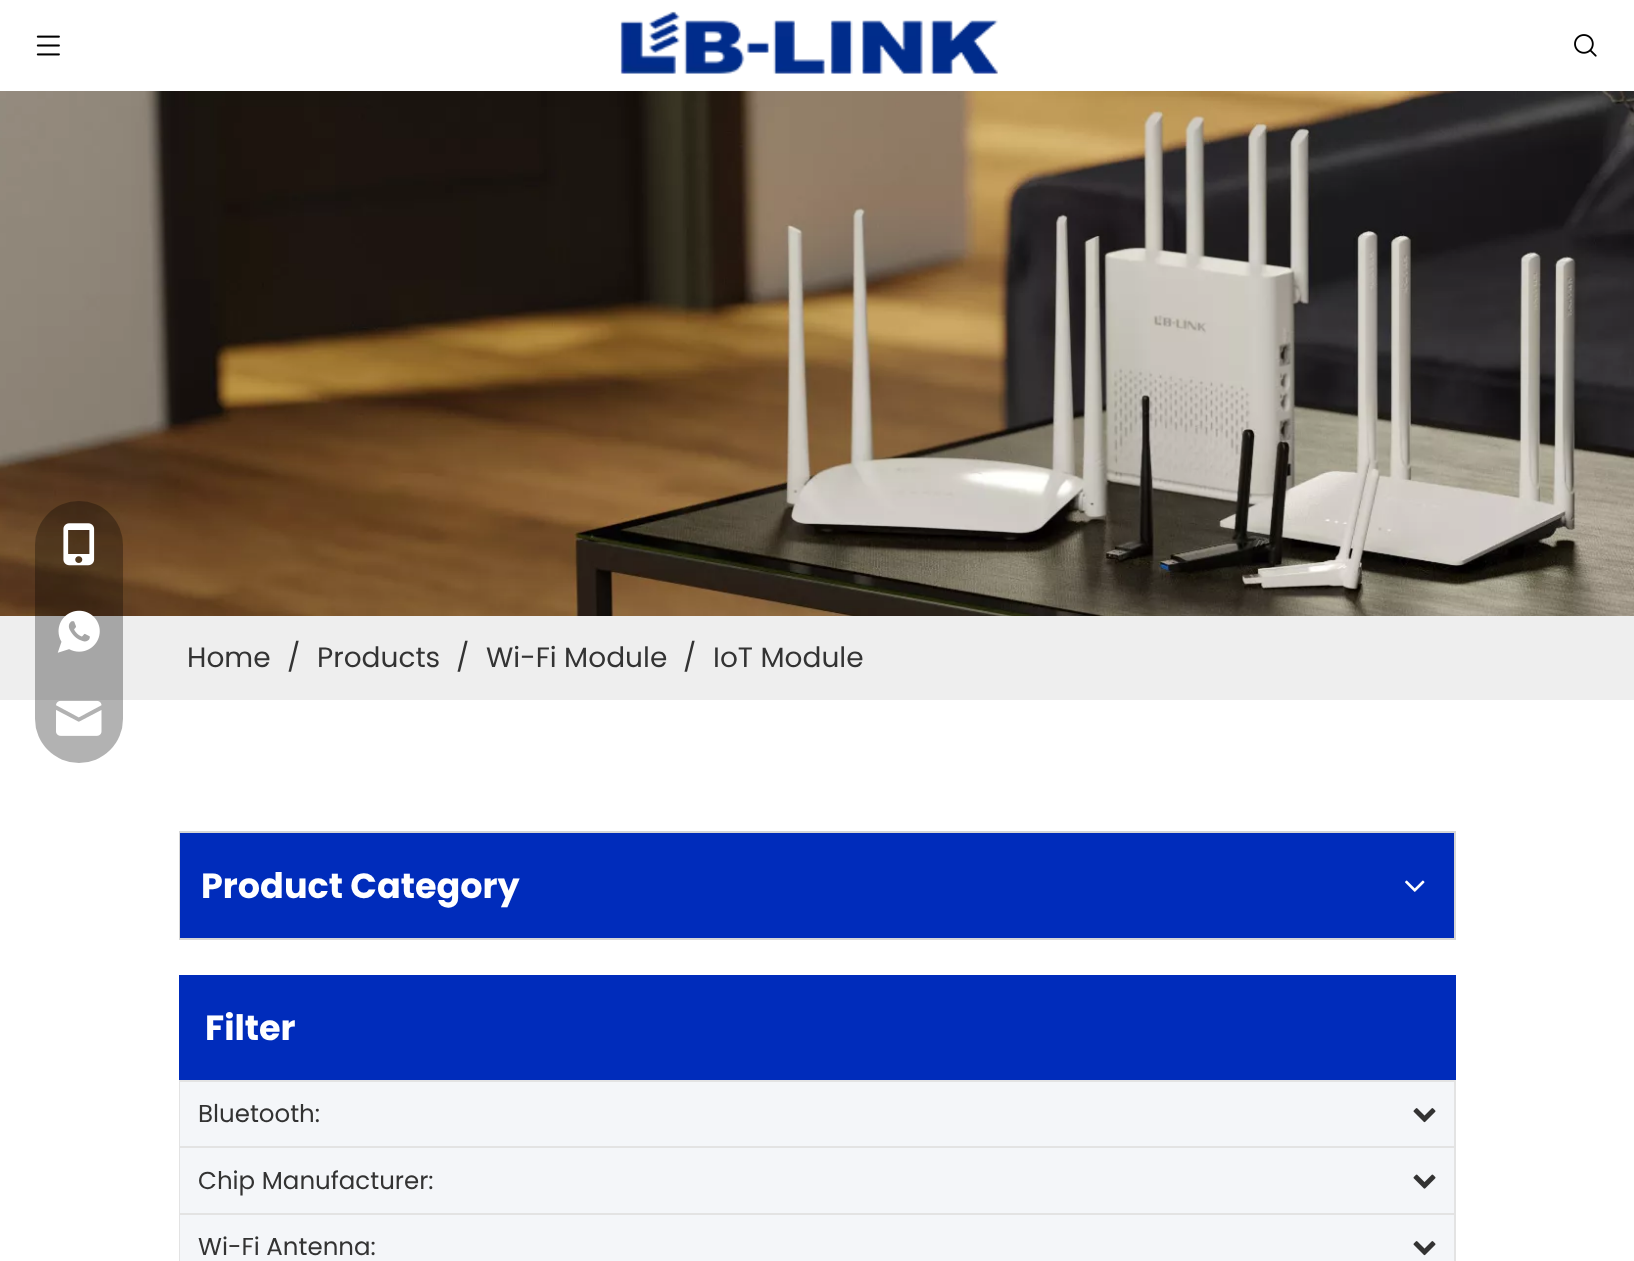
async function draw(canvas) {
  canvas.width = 1634;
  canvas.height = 1261;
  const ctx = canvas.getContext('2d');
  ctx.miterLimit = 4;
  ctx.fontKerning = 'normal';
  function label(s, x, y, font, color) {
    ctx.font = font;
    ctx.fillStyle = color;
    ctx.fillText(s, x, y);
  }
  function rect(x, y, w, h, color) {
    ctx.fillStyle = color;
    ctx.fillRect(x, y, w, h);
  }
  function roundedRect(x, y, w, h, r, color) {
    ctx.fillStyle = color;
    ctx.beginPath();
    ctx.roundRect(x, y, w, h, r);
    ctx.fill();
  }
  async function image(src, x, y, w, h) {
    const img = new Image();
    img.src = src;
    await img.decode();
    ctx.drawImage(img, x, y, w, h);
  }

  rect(0, 0, 1634, 1261, '#fff');
  await image('assets/img1.png', 36, 35, 24, 21);
  await image('assets/img2.png', 620, 11, 378, 63);
  await image('assets/img3.png', 1574, 34, 23, 23);
  await image('assets/img7.png', 0, 91, 1634, 525);
  rect(0, 616, 1634, 84, '#eee');
  roundedRect(35, 501, 88, 262, 44, '#0000004d');
  await image('assets/img4.png', 63, 523, 32, 43);
  await image('assets/img5.png', 57, 610, 43, 43);
  await image('assets/img6.png', 56, 700, 46, 36);
  label('Home', 187, 667, '28px Poppins', '#333');
  label('/', 287, 667, '28px Poppins', '#333');
  label('Products', 317, 667, '28px Poppins', '#333');
  label('/', 456, 667, '28px Poppins', '#333');
  label('Wi-Fi Module', 486, 667, '28px Poppins', '#333');
  label('/', 683, 667, '28px Poppins', '#333');
  label('IoT Module', 713, 667, '28px Poppins', '#333');
  ctx.strokeStyle = '#d6d6d6';
  ctx.lineWidth = 2;
  ctx.strokeRect(180, 832, 1275, 107);
  rect(180, 833, 1274, 105, '#002cbb');
  label('Product Category', 201, 898, 'bold 35px Poppins', '#fff');
  await image('assets/img8.png', 1405, 880, 20, 12);
  rect(179, 975, 1277, 105, '#002cbb');
  label('Filter', 205, 1040, 'bold 35px Poppins', '#fff');
  rect(179, 1080, 1277, 2, '#e3e3e3');
  rect(1454, 1080, 2, 66, '#e3e3e3');
  rect(179, 1080, 2, 66, '#e3e3e3');
  rect(180, 1082, 1274, 64, '#f4f6f9');
  label('Bluetooth:', 198, 1122, '24.5px Poppins', '#333');
  await image('assets/img9.png', 1413, 1108, 23, 15);
  rect(179, 1146, 1277, 2, '#e3e3e3');
  rect(1454, 1146, 2, 67, '#e3e3e3');
  rect(179, 1146, 2, 67, '#e3e3e3');
  rect(180, 1148, 1274, 65, '#f4f6f9');
  label('Chip Manufacturer:', 198, 1189, '24.5px Poppins', '#333');
  await image('assets/img10.png', 1413, 1174, 23, 15);
  rect(179, 1213, 1277, 2, '#e3e3e3');
  rect(1454, 1213, 2, 48, '#e3e3e3');
  rect(179, 1213, 2, 48, '#e3e3e3');
  rect(180, 1215, 1274, 46, '#f4f6f9');
  label('Wi-Fi Antenna:', 198, 1255, '24.5px Poppins', '#333');
  await image('assets/img9.png', 1413, 1241, 23, 15);
}

draw(document.querySelector('canvas'));
